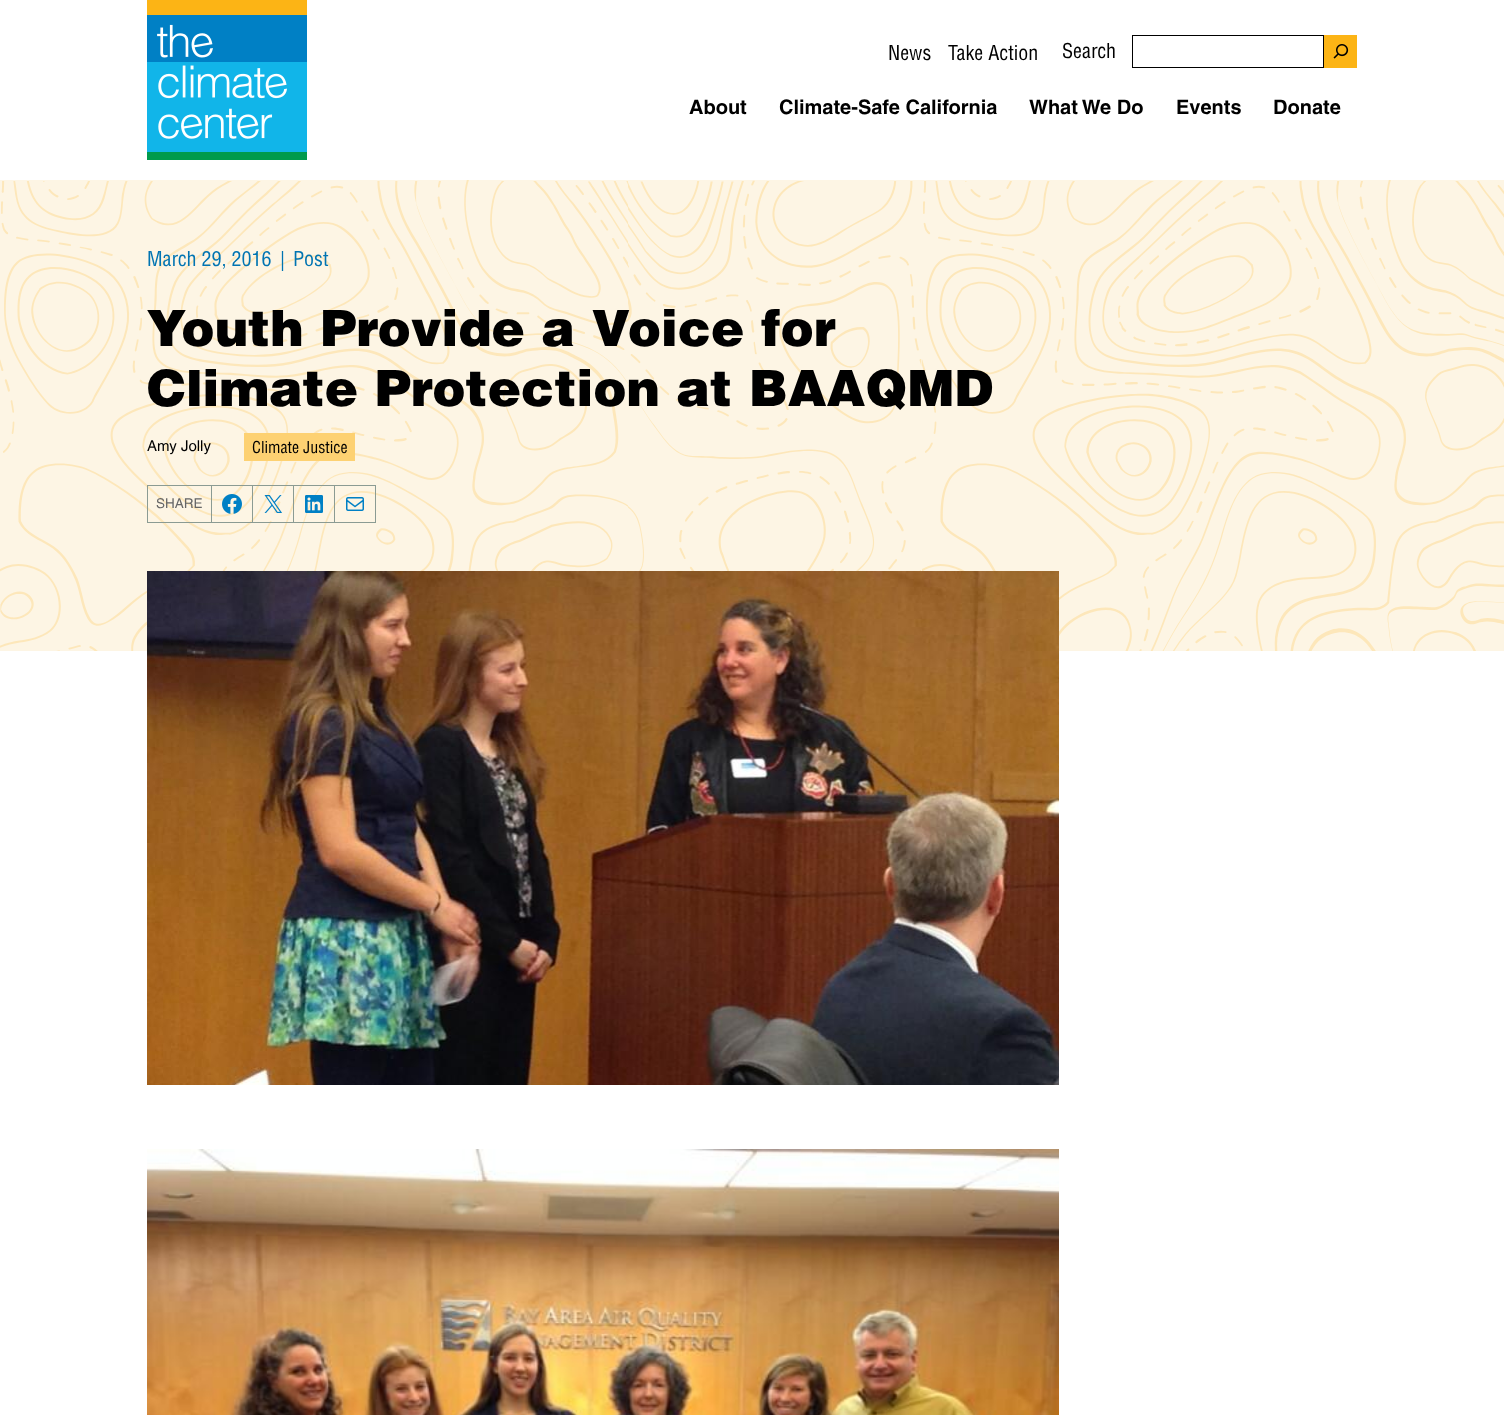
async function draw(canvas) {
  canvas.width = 1504;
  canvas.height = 1415;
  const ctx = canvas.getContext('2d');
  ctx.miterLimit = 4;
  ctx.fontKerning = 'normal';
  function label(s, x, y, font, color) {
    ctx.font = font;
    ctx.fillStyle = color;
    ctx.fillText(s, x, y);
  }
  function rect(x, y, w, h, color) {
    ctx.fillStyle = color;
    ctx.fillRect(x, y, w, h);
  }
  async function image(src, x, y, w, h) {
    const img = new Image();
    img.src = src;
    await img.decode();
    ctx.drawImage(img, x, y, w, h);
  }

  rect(0, 0, 1504, 1415, '#fff');
  await image('assets/img1.png', 147, 0, 160, 160);
  label('News', 888, 60, '20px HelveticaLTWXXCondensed', '#000');
  label('Take Action', 948, 60, '20px HelveticaLTWXXCondensed', '#000');
  label('Search', 1062, 58, '20px HelveticaLTWXXCondensed', '#000');
  ctx.strokeStyle = '#000';
  ctx.strokeRect(1132.5, 35.5, 191, 32);
  rect(1324, 35, 33, 33, '#fcb415');
  await image('assets/img2.png', 1333, 44, 16, 15);
  label('About', 689, 114, 'bold 20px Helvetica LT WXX', '#000');
  label('Climate-Safe California', 779, 114, 'bold 20px Helvetica LT WXX', '#000');
  label('What We Do', 1029, 114, 'bold 20px Helvetica LT WXX', '#000');
  label('Events', 1176, 114, 'bold 20px Helvetica LT WXX', '#000');
  label('Donate', 1273, 114, 'bold 20px Helvetica LT WXX', '#000');
  rect(0, 180, 1504, 471, '#fdf5e4');
  await image('assets/img3.png', 0, 180, 1504, 471);
  label('March 29, 2016', 147, 266, '20px HelveticaLTWXXCondensed', '#0074b2');
  label('|', 280, 266, '20px HelveticaLTWXXCondensed', '#0074b2');
  label('Post', 293, 266, '20px HelveticaLTWXXCondensed', '#0074b2');
  label('Youth Provide a Voice for', 147, 346, '900 50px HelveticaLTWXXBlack', '#000');
  label('Climate Protection at BAAQMD', 147, 406, '900 50px HelveticaLTWXXBlack', '#000');
  label('Amy Jolly', 147, 451, '15px Helvetica LT WXX', '#000');
  rect(244, 433, 111, 28, '#fdd172');
  label('Climate Justice', 252, 453, '16px HelveticaLTWXXCondensed', '#000');
  rect(147, 485, 64, 1, '#8b9b93');
  rect(147, 522, 64, 1, '#8b9b93');
  rect(147, 485, 1, 38, '#8b9b93');
  label('SHARE', 156, 508, '13.5px Helvetica LT WXX', '#666');
  ctx.strokeStyle = '#8b9b93';
  ctx.strokeRect(211.5, 485.5, 41, 37);
  await image('assets/img4.png', 222, 494, 20, 20);
  ctx.strokeRect(252.5, 485.5, 41, 37);
  await image('assets/img5.png', 264, 495, 18, 18);
  ctx.strokeRect(293.5, 485.5, 41, 37);
  await image('assets/img6.png', 305, 495, 18, 18);
  ctx.strokeRect(334.5, 485.5, 41, 37);
  await image('assets/img7.png', 346, 497, 18, 14);
  await image('assets/img8.png', 147, 571, 912, 514);
  await image('assets/img9.png', 147, 1149, 912, 266);
}

draw(document.querySelector('canvas'));
